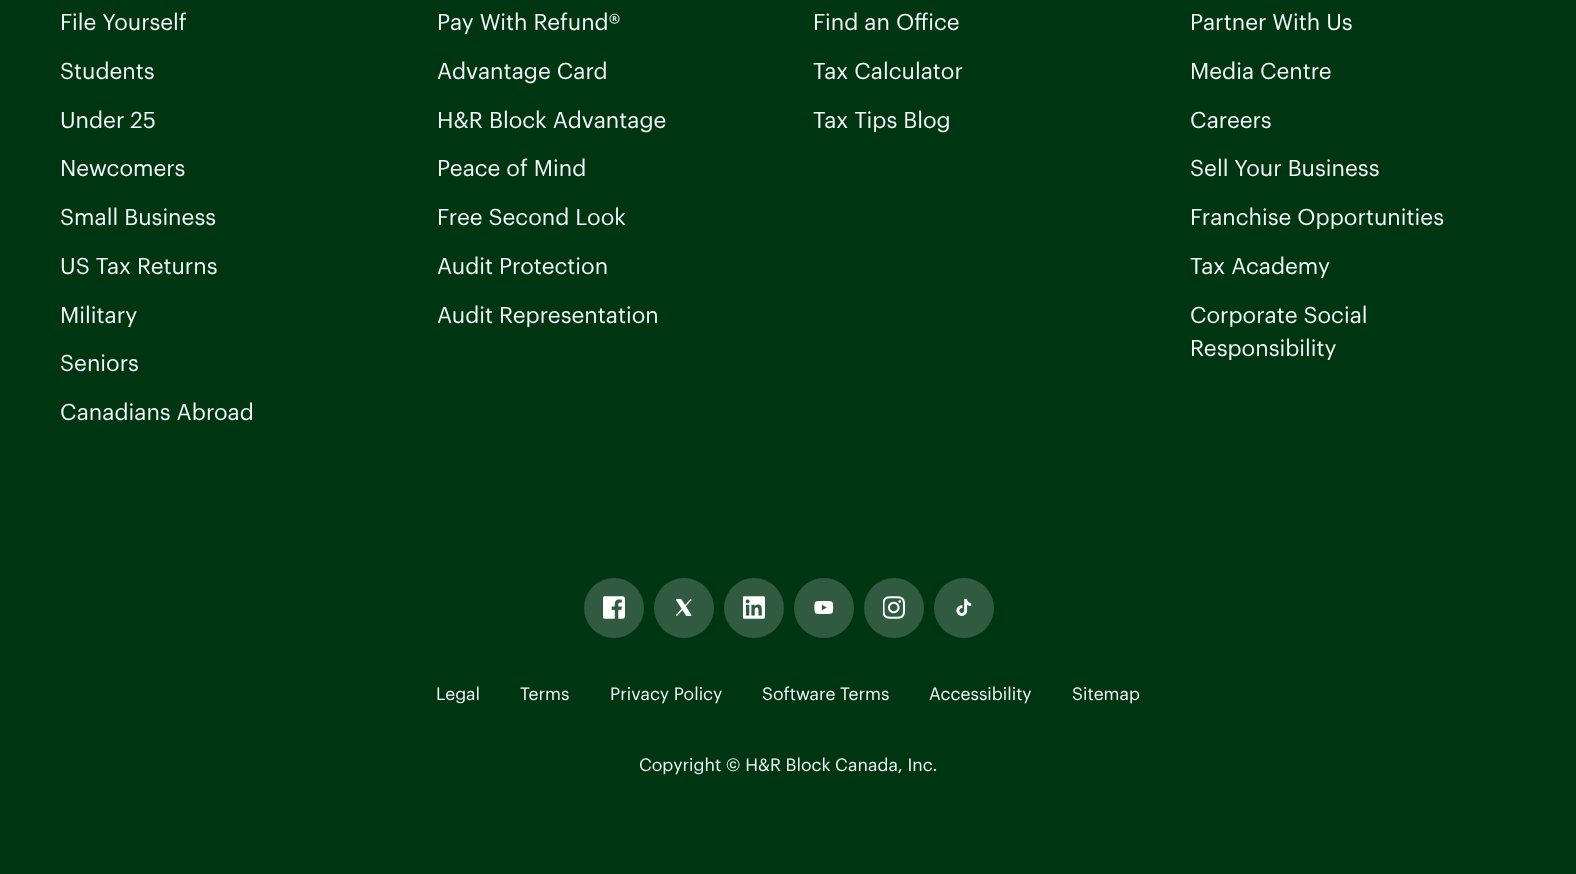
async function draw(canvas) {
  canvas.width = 1576;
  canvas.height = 874;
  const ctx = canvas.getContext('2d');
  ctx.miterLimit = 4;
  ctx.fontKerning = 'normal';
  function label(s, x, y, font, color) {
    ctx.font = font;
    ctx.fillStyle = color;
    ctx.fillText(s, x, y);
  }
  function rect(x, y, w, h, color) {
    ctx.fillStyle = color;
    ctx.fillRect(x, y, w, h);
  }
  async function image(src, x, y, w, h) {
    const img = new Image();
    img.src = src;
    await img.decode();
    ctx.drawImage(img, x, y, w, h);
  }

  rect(0, 0, 1576, 874, '#003512');
  label('File Yourself', 60, 30, '22.5px Graphik', '#f1f5f7');
  label('Students', 60, 79, '22.5px Graphik', '#f1f5f7');
  label('Under 25', 60, 128, '22.5px Graphik', '#f1f5f7');
  label('Newcomers', 60, 176, '22.5px Graphik', '#f1f5f7');
  label('Small Business', 60, 225, '22.5px Graphik', '#f1f5f7');
  label('US Tax Returns', 60, 274, '22.5px Graphik', '#f1f5f7');
  label('Military', 60, 323, '22.5px Graphik', '#f1f5f7');
  label('Seniors', 60, 371, '22.5px Graphik', '#f1f5f7');
  label('Canadians Abroad', 60, 420, '22.5px Graphik', '#f1f5f7');
  label('Pay With Refund®', 437, 30, '22.5px Graphik', '#f1f5f7');
  label('Advantage Card', 437, 79, '22.5px Graphik', '#f1f5f7');
  label('H&R Block Advantage', 437, 128, '22.5px Graphik', '#f1f5f7');
  label('Peace of Mind', 437, 176, '22.5px Graphik', '#f1f5f7');
  label('Free Second Look', 437, 225, '22.5px Graphik', '#f1f5f7');
  label('Audit Protection', 437, 274, '22.5px Graphik', '#f1f5f7');
  label('Audit Representation', 437, 323, '22.5px Graphik', '#f1f5f7');
  label('Find an Office', 813, 30, '22.5px Graphik', '#f1f5f7');
  label('Tax Calculator', 813, 79, '22.5px Graphik', '#f1f5f7');
  label('Tax Tips Blog', 813, 128, '22.5px Graphik', '#f1f5f7');
  label('Partner With Us', 1190, 30, '22.5px Graphik', '#f1f5f7');
  label('Media Centre', 1190, 79, '22.5px Graphik', '#f1f5f7');
  label('Careers', 1190, 128, '22.5px Graphik', '#f1f5f7');
  label('Sell Your Business', 1190, 176, '22.5px Graphik', '#f1f5f7');
  label('Franchise Opportunities', 1190, 225, '22.5px Graphik', '#f1f5f7');
  label('Tax Academy', 1190, 274, '22.5px Graphik', '#f1f5f7');
  label('Corporate Social', 1190, 323, '22.5px Graphik', '#f1f5f7');
  label('Responsibility', 1190, 356, '22.5px Graphik', '#f1f5f7');
  ctx.fillStyle = '#305b40';
  ctx.beginPath();
  ctx.arc(614, 608, 30, 0, 2 * Math.PI);
  ctx.fill();
  await image('assets/img1.png', 603, 596, 22, 23);
  ctx.beginPath();
  ctx.arc(684, 608, 30, 0, 2 * Math.PI);
  ctx.fill();
  await image('assets/img2.png', 676, 599, 16, 17);
  ctx.beginPath();
  ctx.arc(754, 608, 30, 0, 2 * Math.PI);
  ctx.fill();
  await image('assets/img3.png', 743, 596, 22, 23);
  ctx.beginPath();
  ctx.arc(824, 608, 30, 0, 2 * Math.PI);
  ctx.fill();
  await image('assets/img4.png', 814, 600, 20, 15);
  ctx.beginPath();
  ctx.arc(894, 608, 30, 0, 2 * Math.PI);
  ctx.fill();
  await image('assets/img5.png', 883, 596, 22, 23);
  ctx.beginPath();
  ctx.arc(964, 608, 30, 0, 2 * Math.PI);
  ctx.fill();
  await image('assets/img6.png', 956, 599, 16, 17);
  label('Legal', 436, 700, '17.5px Graphik', '#f1f5f7');
  label('Terms', 520, 700, '17.5px Graphik', '#f1f5f7');
  label('Privacy Policy', 610, 700, '17.5px Graphik', '#f1f5f7');
  label('Software Terms', 762, 700, '17.5px Graphik', '#f1f5f7');
  label('Accessibility', 929, 700, '17.5px Graphik', '#f1f5f7');
  label('Sitemap', 1072, 700, '17.5px Graphik', '#f1f5f7');
  label('Copyright © H&R Block Canada, Inc.', 639, 771, '17.5px Graphik', '#f1f5f7');
}

draw(document.querySelector('canvas'));
